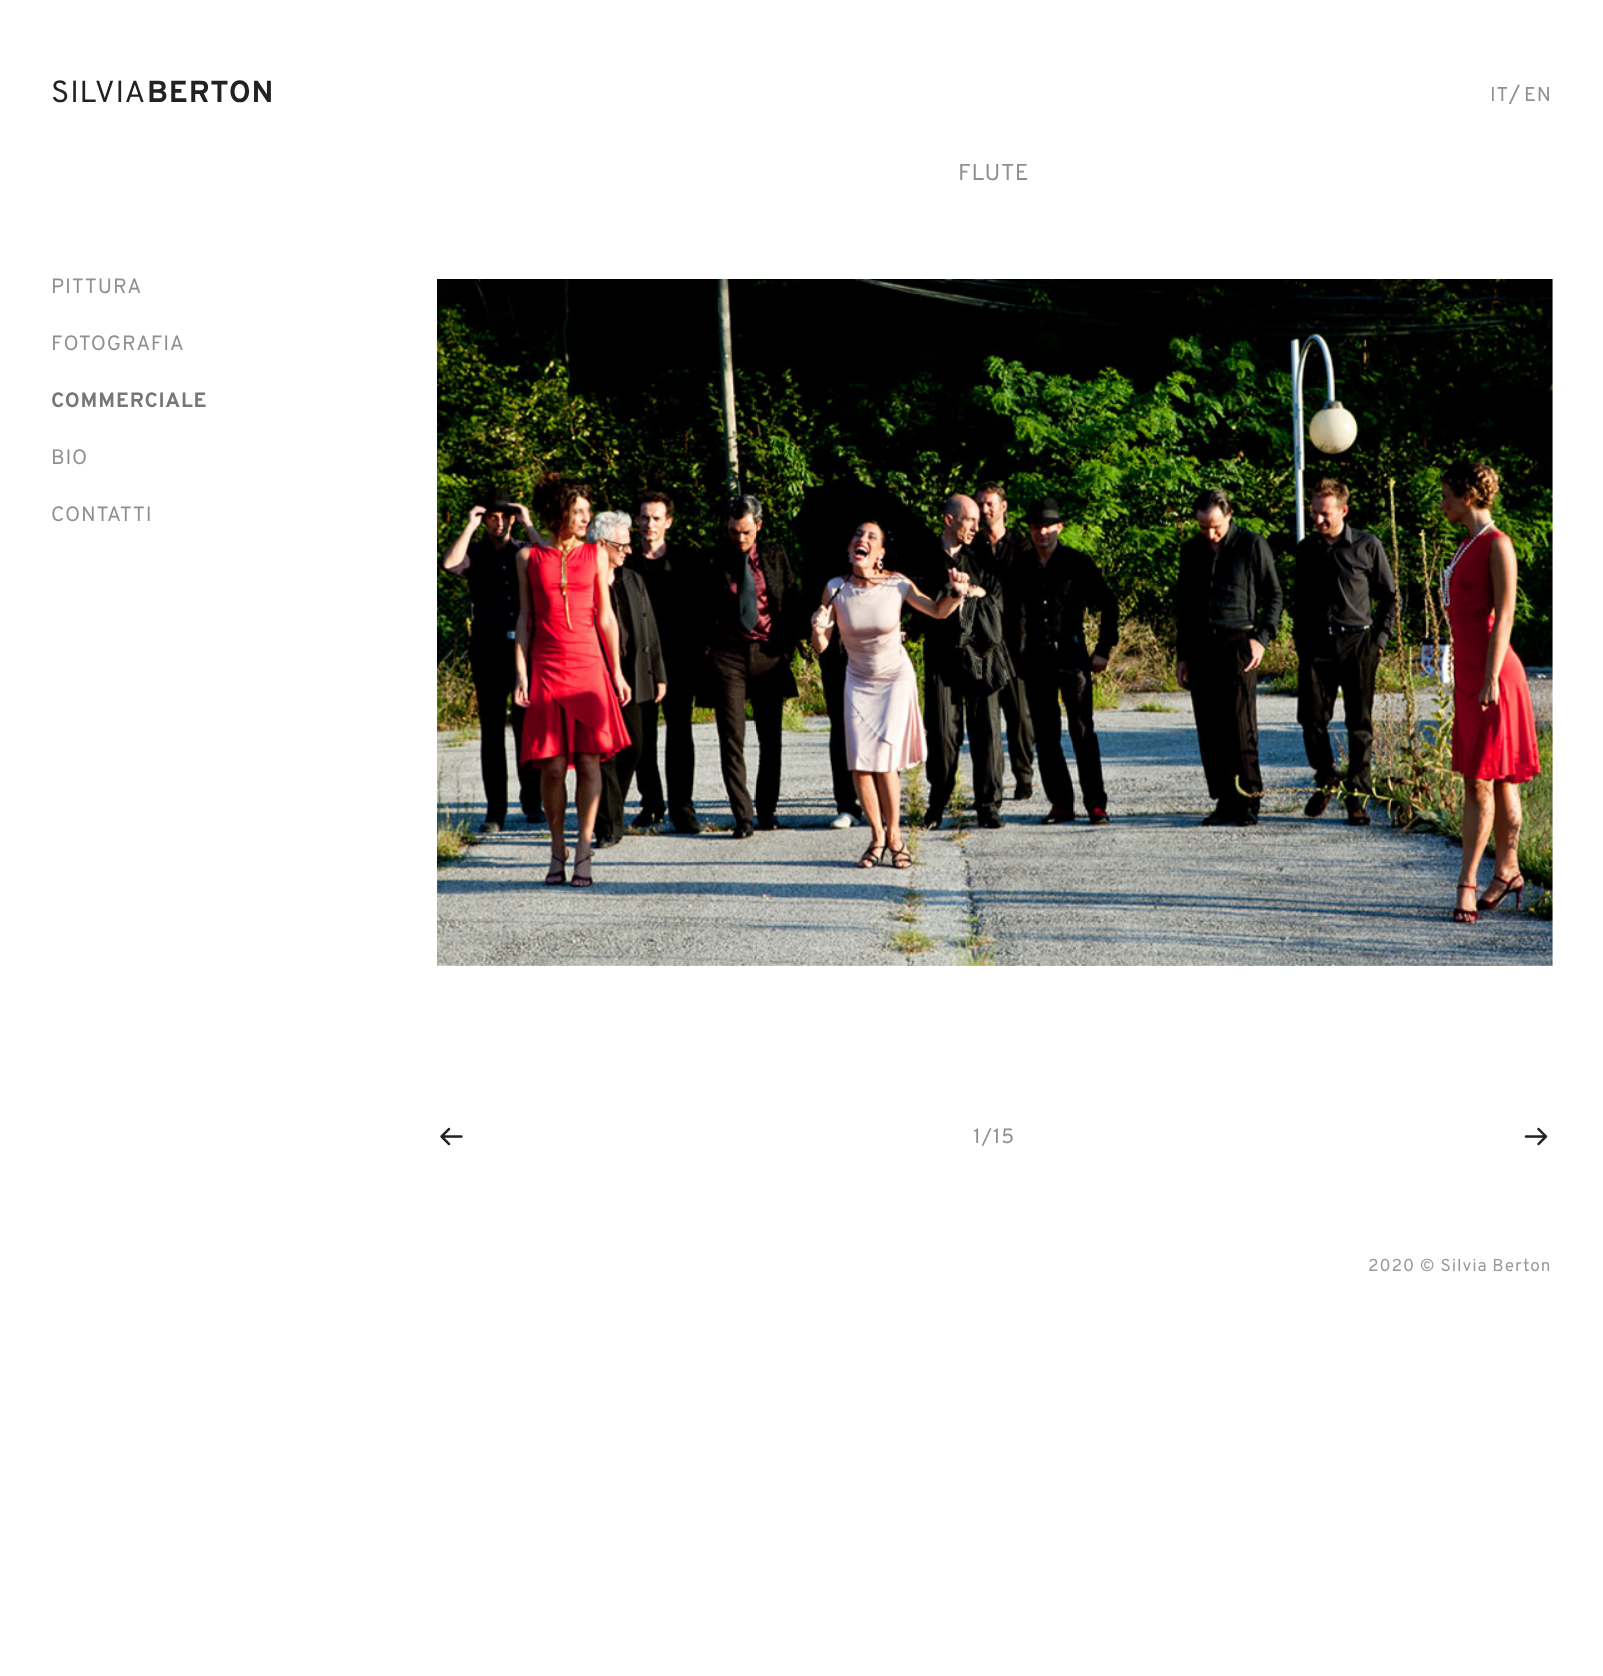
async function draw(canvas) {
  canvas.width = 1603;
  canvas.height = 1676;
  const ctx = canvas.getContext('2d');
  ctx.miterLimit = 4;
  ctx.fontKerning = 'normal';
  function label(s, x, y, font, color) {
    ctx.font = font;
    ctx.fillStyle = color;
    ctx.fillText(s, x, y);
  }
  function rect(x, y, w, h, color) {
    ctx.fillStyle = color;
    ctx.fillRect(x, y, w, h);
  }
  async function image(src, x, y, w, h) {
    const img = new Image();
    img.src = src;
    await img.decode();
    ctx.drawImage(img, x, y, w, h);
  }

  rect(0, 0, 1603, 1676, '#fff');
  ctx.letterSpacing = '0.9px';
  label('SILVIA', 51, 102, '30.5px Overpass', '#222');
  label('BERTON', 147, 102, 'bold 30.5px Overpass', '#222');
  label('IT', 1490, 101, '20px Overpass', '#909090');
  label('/', 1509, 101, '23px Overpass', '#909090');
  label('EN', 1524, 101, '20px Overpass', '#909090');
  label('PITTURA', 51, 293, '20.75px Overpass', '#909090');
  label('FOTOGRAFIA', 51, 350, '20.75px Overpass', '#909090');
  label('COMMERCIALE', 51, 407, 'bold 20.75px Overpass', '#777');
  label('BIO', 51, 464, '20.75px Overpass', '#909090');
  label('CONTATTI', 51, 521, '20.75px Overpass', '#909090');
  ctx.letterSpacing = '0.5px';
  label('FLUTE', 958, 180, '23px Overpass', '#909090');
  await image('assets/img1.png', 437, 279, 1116, 687);
  await image('assets/img2.png', 440, 1127, 23, 19);
  ctx.letterSpacing = '0.9px';
  label('1/15', 973, 1143, '20.75px Overpass', '#909090');
  await image('assets/img3.png', 1524, 1127, 24, 19);
  label('2020 © Silvia Berton', 1368, 1271, '17.25px Overpass', '#999');
}

draw(document.querySelector('canvas'));
